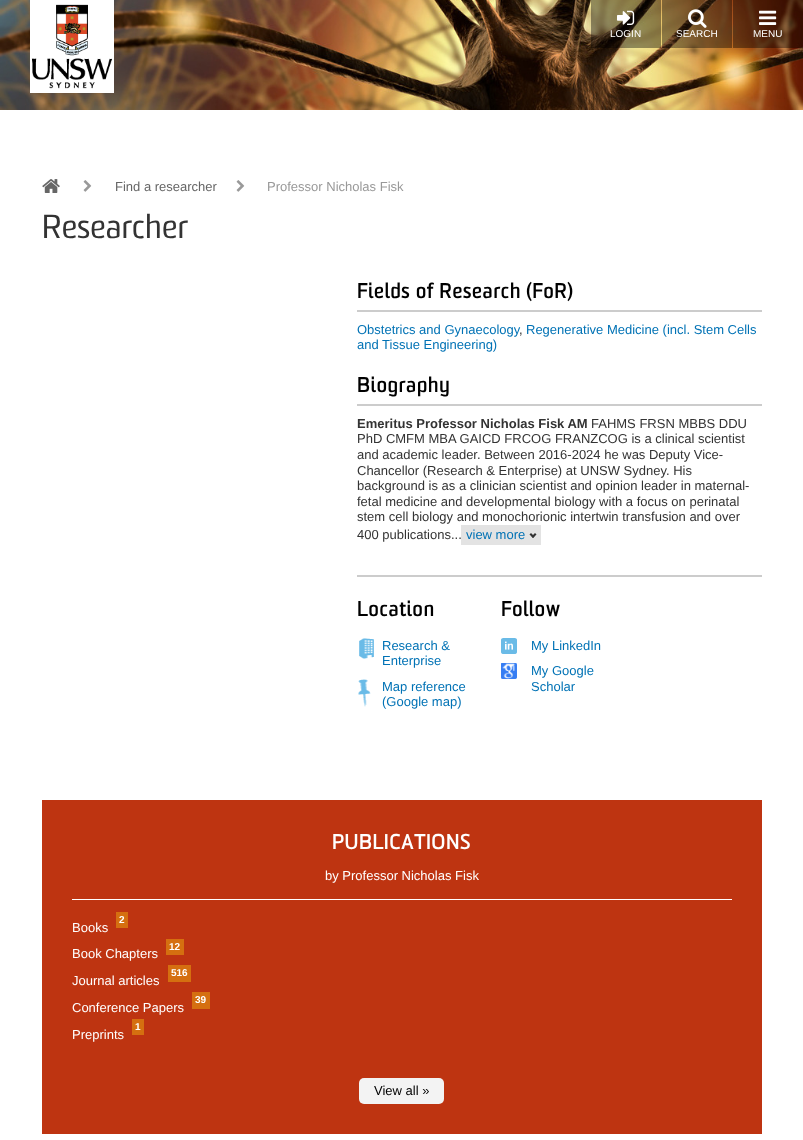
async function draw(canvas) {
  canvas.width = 803;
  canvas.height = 1140;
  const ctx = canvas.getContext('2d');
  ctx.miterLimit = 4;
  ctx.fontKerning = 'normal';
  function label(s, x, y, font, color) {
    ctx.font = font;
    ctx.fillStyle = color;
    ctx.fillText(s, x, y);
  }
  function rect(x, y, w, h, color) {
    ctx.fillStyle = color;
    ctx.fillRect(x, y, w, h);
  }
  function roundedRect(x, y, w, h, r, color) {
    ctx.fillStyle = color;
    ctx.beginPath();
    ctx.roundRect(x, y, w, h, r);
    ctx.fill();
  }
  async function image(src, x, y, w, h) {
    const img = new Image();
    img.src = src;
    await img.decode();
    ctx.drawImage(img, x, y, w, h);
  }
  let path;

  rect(0, 0, 803, 1140, '#fff');
  await image('assets/img1.png', 0, 0, 803, 110);
  await image('assets/img2.png', 30, 0, 84, 93);
  rect(591, 0, 70, 48, '#00000066');
  await image('assets/img3.png', 617, 10, 18, 15);
  label('LOGIN', 610, 37, '10px Liberation Sans', '#fff');
  rect(662, 0, 70, 48, '#00000066');
  await image('assets/img4.png', 688, 9, 19, 19);
  label('SEARCH', 676, 37, '10px Liberation Sans', '#fff');
  rect(733, 0, 70, 48, '#00000066');
  await image('assets/img5.png', 759, 10, 18, 15);
  label('MENU', 753, 37, '10px Liberation Sans', '#fff');
  await image('assets/img6.png', 42, 179, 18, 14);
  await image('assets/img7.png', 83, 180, 9, 12);
  label('Find a researcher', 115, 191, '13px Liberation Sans', '#666');
  await image('assets/img7.png', 236, 180, 9, 12);
  label('Professor Nicholas Fisk', 267, 191, '13px Liberation Sans', '#999');
  label('Researcher', 42, 238, '32.5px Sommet', '#333');
  rect(357, 310, 405, 2, '#ccc');
  ctx.letterSpacing = '1px';
  label('Fields of Research (FoR)', 357, 298, 'bold 20px Sommet', '#000');
  ctx.letterSpacing = '0px';
  label('Obstetrics and Gynaecology', 357, 334, '13px Liberation Sans', '#0072b5');
  label(',', 519, 334, '13px Liberation Sans', '#333');
  label('Regenerative Medicine (incl. Stem Cells', 526, 334, '13px Liberation Sans', '#0072b5');
  label('and Tissue Engineering)', 357, 349, '13px Liberation Sans', '#0072b5');
  rect(357, 404, 405, 2, '#ccc');
  ctx.letterSpacing = '1px';
  label('Biography', 357, 392, 'bold 20px Sommet', '#000');
  ctx.letterSpacing = '0px';
  label('Emeritus Professor Nicholas Fisk AM', 357, 428, 'bold 13px Liberation Sans', '#333');
  label('FAHMS FRSN MBBS DDU', 591, 428, '13px Liberation Sans', '#333');
  label('PhD CMFM MBA GAICD FRCOG FRANZCOG is a clinical scientist', 357, 443, '13px Liberation Sans', '#333');
  label('and academic leader. Between 2016-2024 he was Deputy Vice-', 357, 459, '13px Liberation Sans', '#333');
  label('Chancellor (Research & Enterprise) at UNSW Sydney. His', 357, 475, '13px Liberation Sans', '#333');
  label('background is as a clinician scientist and opinion leader in maternal-', 357, 490, '13px Liberation Sans', '#333');
  label('fetal medicine and developmental biology with a focus on perinatal', 357, 506, '13px Liberation Sans', '#333');
  label('stem cell biology and monochorionic intertwin transfusion and over', 357, 521, '13px Liberation Sans', '#333');
  label('400 publications...', 357, 539, '13px Liberation Sans', '#333');
  rect(461, 525, 80, 20, '#e3e3e3');
  label('view more', 466, 539, '13px Liberation Sans', '#0072b5');
  ctx.fillStyle = '#333';
  path = new Path2D('M535 533L536.5 534.5L533 538L531.5 536.5Z');
  ctx.fill(path);
  path = new Path2D('M531 533L534.5 536.5L533 538L529.5 534.5Z');
  ctx.fill(path);
  rect(357, 575, 405, 2, '#ccc');
  ctx.letterSpacing = '1px';
  label('Location', 357, 616, 'bold 20px Sommet', '#000');
  await image('assets/img8.png', 359, 638, 15, 21);
  ctx.letterSpacing = '0px';
  label('Research &', 382, 650, '13px Liberation Sans', '#0072b5');
  label('Enterprise', 382, 665, '13px Liberation Sans', '#0072b5');
  await image('assets/img9.png', 358, 679, 13, 28);
  label('Map reference', 382, 691, '13px Liberation Sans', '#0072b5');
  label('(Google map)', 382, 706, '13px Liberation Sans', '#0072b5');
  ctx.letterSpacing = '1px';
  label('Follow', 501, 616, 'bold 20px Sommet', '#000');
  await image('assets/img10.png', 501, 638, 16, 16);
  ctx.letterSpacing = '0px';
  label('My LinkedIn', 531, 650, '13px Liberation Sans', '#0072b5');
  await image('assets/img11.png', 501, 663, 16, 16);
  label('My Google', 531, 675, '13px Liberation Sans', '#0072b5');
  label('Scholar', 531, 691, '13px Liberation Sans', '#0072b5');
  rect(42, 800, 720, 334, '#be3411');
  ctx.letterSpacing = '1px';
  label('PUBLICATIONS', 332, 849, 'bold 20px Sommet', '#fff');
  rect(72, 899, 660, 1, '#fff');
  ctx.letterSpacing = '0px';
  label('by Professor Nicholas Fisk', 325, 880, '13px Liberation Sans', '#fff');
  rect(116, 912, 12, 16, '#d56f10');
  label('2', 119, 923, 'bold 10px Liberation Sans', '#fff');
  label('Books', 72, 932, '13px Liberation Sans', '#fff');
  rect(166, 939, 18, 16, '#d56f10');
  label('12', 169, 950, 'bold 10px Liberation Sans', '#fff');
  label('Book Chapters', 72, 958, '13px Liberation Sans', '#fff');
  rect(168, 965, 23, 17, '#d56f10');
  label('516', 171, 976, 'bold 10px Liberation Sans', '#fff');
  label('Journal articles', 72, 985, '13px Liberation Sans', '#fff');
  rect(192, 992, 18, 17, '#d56f10');
  label('39', 195, 1003, 'bold 10px Liberation Sans', '#fff');
  label('Conference Papers', 72, 1012, '13px Liberation Sans', '#fff');
  rect(132, 1019, 12, 16, '#d56f10');
  label('1', 135, 1030, 'bold 10px Liberation Sans', '#fff');
  label('Preprints', 72, 1039, '13px Liberation Sans', '#fff');
  roundedRect(359, 1078, 85, 26, 5, '#f3f3f3');
  label('View all »', 374, 1095, '13px Liberation Sans', '#000');
}

draw(document.querySelector('canvas'));
